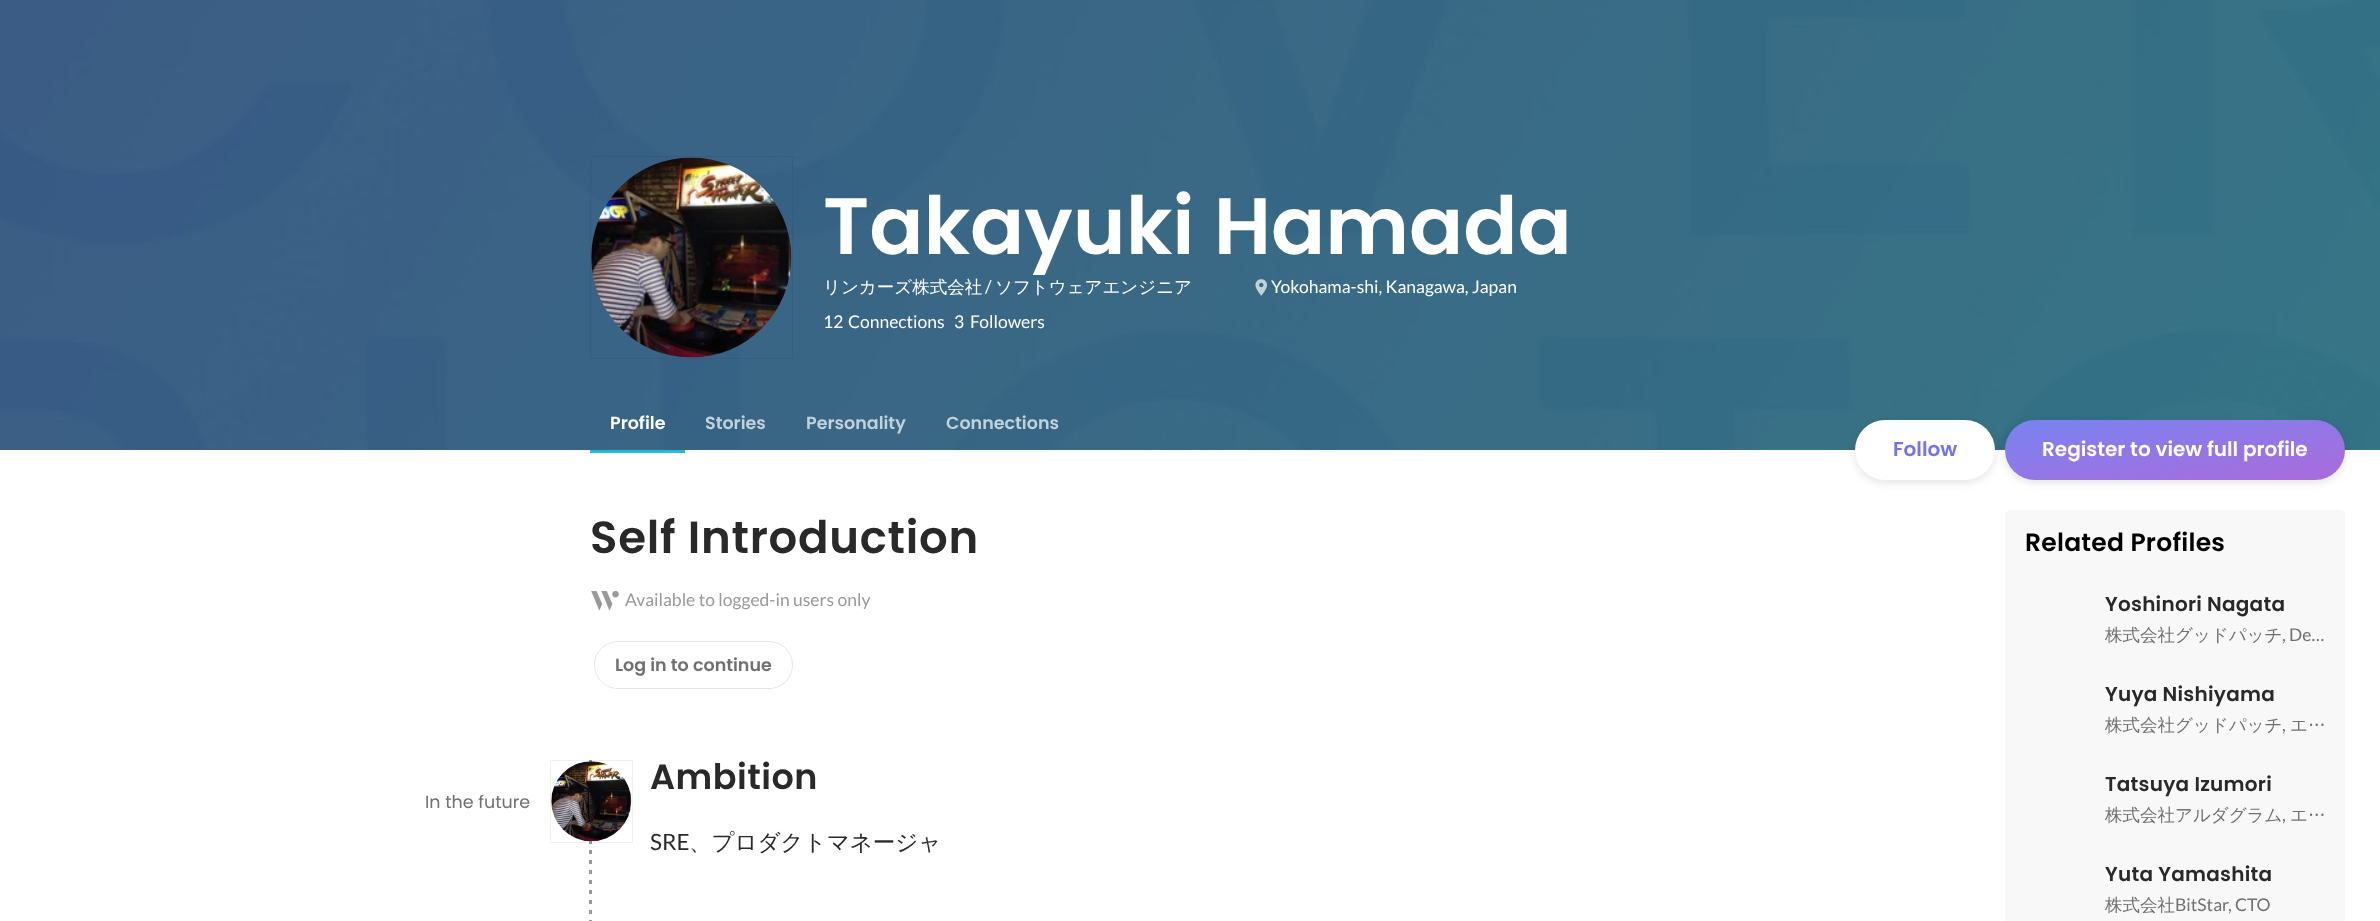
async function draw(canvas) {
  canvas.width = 2380;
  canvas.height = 921;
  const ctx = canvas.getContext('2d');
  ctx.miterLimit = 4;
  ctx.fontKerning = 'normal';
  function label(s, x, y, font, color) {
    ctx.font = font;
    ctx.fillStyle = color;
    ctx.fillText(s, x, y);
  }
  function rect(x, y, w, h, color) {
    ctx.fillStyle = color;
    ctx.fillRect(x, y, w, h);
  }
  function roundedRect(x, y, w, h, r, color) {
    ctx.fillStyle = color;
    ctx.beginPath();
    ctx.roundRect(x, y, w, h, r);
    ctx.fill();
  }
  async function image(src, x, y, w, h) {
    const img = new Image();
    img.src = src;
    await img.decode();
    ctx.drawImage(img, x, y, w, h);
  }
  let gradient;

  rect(0, 0, 2380, 921, '#fff');
  await image('assets/img1.png', 0, 0, 2380, 450);
  ctx.strokeStyle = '#0000000f';
  ctx.strokeRect(590.5, 156.5, 202, 202);
  await image('assets/img2.png', 591, 157, 201, 201);
  label('Takayuki Hamada', 823, 254, '600 80px Poppins', '#fff');
  label('リンカーズ株式会社', 823, 293, '500 17.5px WenQuanYi Zen Hei', '#fff');
  label('/', 985, 293, '17.5px Lato', '#fff');
  label('ソフトウェアエンジニア', 995, 293, '500 17.5px WenQuanYi Zen Hei', '#fff');
  await image('assets/img3.png', 1255, 279, 13, 17);
  label('Yokohama-shi, Kanagawa, Japan', 1271, 293, '17.5px Lato', '#fff');
  label('12', 823, 328, '17.5px Lato', '#fff');
  label('Connections', 848, 328, '17.5px Lato', '#fff');
  label('3', 954, 328, '17.5px Lato', '#fff');
  label('Followers', 970, 328, '17.5px Lato', '#fff');
  rect(590, 450, 95, 3, '#21bddb');
  label('Profile', 610, 429, '600 17.5px Poppins', '#fff');
  label('Stories', 705, 429, '600 17.5px Poppins', '#c3d1da');
  label('Personality', 806, 429, '600 17.5px Poppins', '#c3d1da');
  label('Connections', 946, 429, '600 17.5px Poppins', '#c3d1da');
  ctx.fillStyle = '#0000001a';
  ctx.filter = 'blur(4px)';
  ctx.beginPath();
  ctx.roundRect(1855, 423, 140, 60, 30);
  ctx.fill();
  ctx.filter = 'none';
  roundedRect(1855, 420, 140, 60, 30, '#fff');
  label('Follow', 1893, 456, '600 20px Poppins', '#7372f2');
  ctx.fillStyle = '#0000001a';
  ctx.filter = 'blur(4px)';
  ctx.beginPath();
  ctx.roundRect(2005, 423, 340, 60, 30);
  ctx.fill();
  ctx.filter = 'none';
  gradient = ctx.createLinearGradient(2165, 392, 2185, 508);
  gradient.addColorStop(0, '#7983f2');
  gradient.addColorStop(1, '#ab6bdb');
  ctx.fillStyle = gradient;
  ctx.beginPath();
  ctx.roundRect(2005, 420, 340, 60, 30);
  ctx.fill();
  label('Register to view full profile', 2042, 456, '600 20px Poppins', '#fff');
  ctx.letterSpacing = '0.75px';
  label('Self Introduction', 590, 553, '600 45px Poppins', '#292929');
  await image('assets/img4.png', 591, 590, 28, 21);
  ctx.letterSpacing = '0px';
  label('Available to logged-in users only', 625, 606, '17.5px Lato', '#999');
  ctx.beginPath();
  ctx.roundRect(594.5, 641.5, 198, 47, 23.5);
  ctx.strokeStyle = '#e6e6e6';
  ctx.stroke();
  roundedRect(595, 643, 196, 45, 22.5, '#fff');
  label('Log in to continue', 615, 671, '600 17.5px Poppins', '#707070');
  await image('assets/img5.png', 589, 760, 3, 161);
  ctx.strokeStyle = '#0000000f';
  ctx.strokeRect(550.5, 760.5, 82, 82);
  await image('assets/img6.png', 551, 761, 81, 81);
  ctx.letterSpacing = '0.5px';
  label('Ambition', 650, 789, '600 35px Poppins', '#292929');
  ctx.letterSpacing = '0px';
  label('In the future', 425, 808, '17.5px Poppins', '#707070');
  label('SRE', 650, 850, '22.5px Lato', '#292929');
  label('、プロダクトマネージャ', 689, 850, '500 22.5px WenQuanYi Zen Hei', '#292929');
  roundedRect(2005, 510, 340, 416, 5, '#f8f8f8');
  ctx.letterSpacing = '0.25px';
  label('Related Profiles', 2025, 551, '600 25px Poppins', '#000');
  label('Yoshinori Nagata', 2105, 611, '600 20px Poppins', '#292929');
  ctx.letterSpacing = '0px';
  label('株式会社グッドパッチ', 2105, 641, '500 17.5px WenQuanYi Zen Hei', '#707070');
  label(', De…', 2282, 641, '17.5px Lato', '#707070');
  ctx.letterSpacing = '0.25px';
  label('Yuya Nishiyama', 2105, 701, '600 20px Poppins', '#292929');
  ctx.letterSpacing = '0px';
  label('株式会社グッドパッチ', 2105, 731, '500 17.5px WenQuanYi Zen Hei', '#707070');
  label(',', 2282, 731, '17.5px Lato', '#707070');
  label('エ…', 2290, 731, '500 17.5px WenQuanYi Zen Hei', '#707070');
  ctx.letterSpacing = '0.25px';
  label('Tatsuya Izumori', 2105, 791, '600 20px Poppins', '#292929');
  ctx.letterSpacing = '0px';
  label('株式会社アルダグラム', 2105, 821, '500 17.5px WenQuanYi Zen Hei', '#707070');
  label(',', 2282, 821, '17.5px Lato', '#707070');
  label('エ…', 2290, 821, '500 17.5px WenQuanYi Zen Hei', '#707070');
  ctx.letterSpacing = '0.25px';
  label('Yuta Yamashita', 2105, 881, '600 20px Poppins', '#292929');
  ctx.letterSpacing = '0px';
  label('株式会社', 2105, 911, '500 17.5px WenQuanYi Zen Hei', '#707070');
  label('BitStar, CTO', 2175, 911, '17.5px Lato', '#707070');
}

draw(document.querySelector('canvas'));
